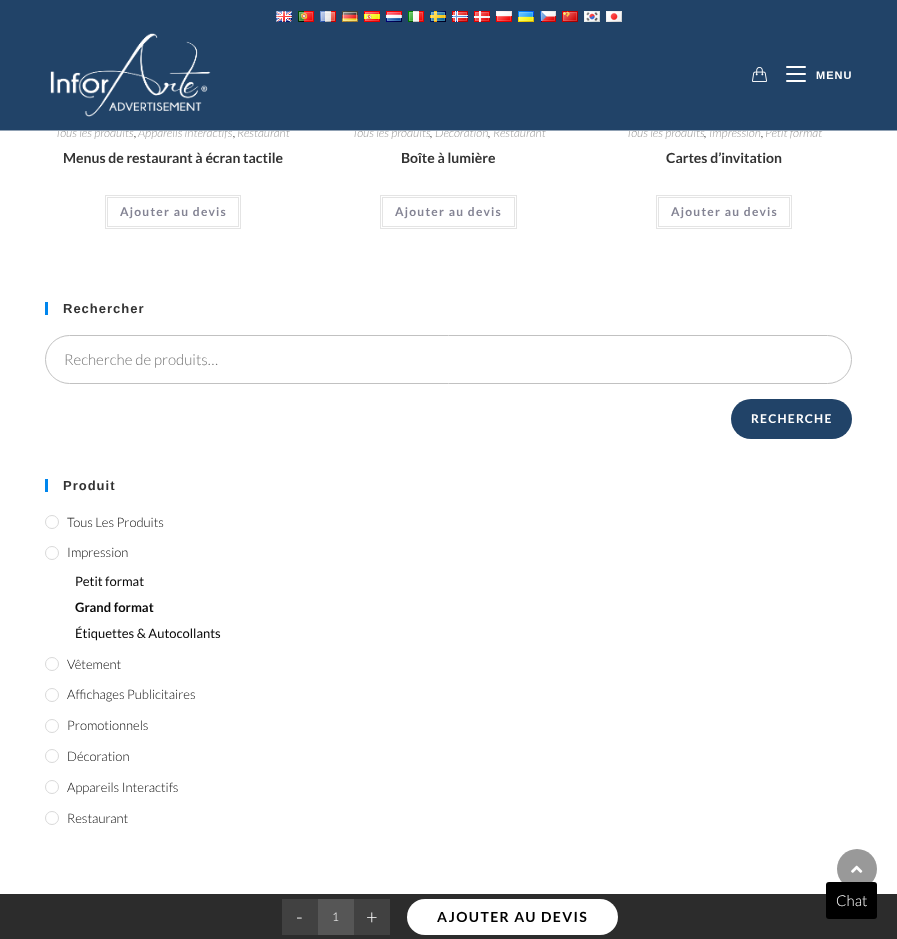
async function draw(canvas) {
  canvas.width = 897;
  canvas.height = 939;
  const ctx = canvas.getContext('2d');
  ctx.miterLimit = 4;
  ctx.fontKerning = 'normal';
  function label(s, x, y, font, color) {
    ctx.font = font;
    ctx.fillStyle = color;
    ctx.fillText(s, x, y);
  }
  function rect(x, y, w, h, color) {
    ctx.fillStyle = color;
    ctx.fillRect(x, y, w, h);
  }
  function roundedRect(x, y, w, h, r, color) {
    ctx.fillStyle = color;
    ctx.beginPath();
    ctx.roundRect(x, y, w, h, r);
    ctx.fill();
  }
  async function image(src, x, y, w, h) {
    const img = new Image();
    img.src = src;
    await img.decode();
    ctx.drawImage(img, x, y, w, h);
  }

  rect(0, 0, 897, 939, '#fff');
  label('Tous les produits', 55, 137, 'italic 300 12px Lato', '#999');
  label('Appareils interactifs', 138, 137, 'italic 300 12px Lato', '#999');
  label('Restaurant', 237, 137, 'italic 300 12px Lato', '#999');
  label('Tous les produits', 352, 137, 'italic 300 12px Lato', '#999');
  label('Décoration', 435, 137, 'italic 300 12px Lato', '#999');
  label('Restaurant', 493, 137, 'italic 300 12px Lato', '#999');
  label('Tous les produits', 626, 137, 'italic 300 12px Lato', '#999');
  label('Impression', 709, 137, 'italic 300 12px Lato', '#999');
  label('Petit format', 765, 137, 'italic 300 12px Lato', '#999');
  rect(0, 0, 897, 130, '#214368');
  await image('assets/img1.png', 276, 11, 16, 11);
  await image('assets/img2.png', 298, 11, 16, 11);
  await image('assets/img3.png', 320, 11, 16, 11);
  await image('assets/img4.png', 342, 11, 16, 11);
  await image('assets/img5.png', 364, 11, 16, 11);
  await image('assets/img6.png', 386, 11, 16, 11);
  await image('assets/img7.png', 408, 11, 16, 11);
  await image('assets/img8.png', 430, 11, 16, 11);
  await image('assets/img9.png', 452, 11, 16, 11);
  await image('assets/img10.png', 474, 11, 16, 11);
  await image('assets/img11.png', 496, 11, 16, 11);
  await image('assets/img12.png', 518, 11, 16, 11);
  await image('assets/img13.png', 540, 11, 16, 11);
  await image('assets/img14.png', 562, 11, 16, 11);
  await image('assets/img15.png', 584, 11, 16, 11);
  await image('assets/img16.png', 606, 11, 16, 11);
  rect(0, 130, 897, 1, '#90a1b4');
  await image('assets/img17.png', 50, 33, 161, 84);
  await image('assets/img18.png', 752, 66, 15, 16);
  roundedRect(786, 80, 20, 2, 1, '#fff');
  roundedRect(786, 66, 20, 2, 1, '#fff');
  roundedRect(786, 73, 20, 2, 1, '#fff');
  ctx.letterSpacing = '1px';
  label('MENU', 816, 79, 'bold 11px Liberation Sans', '#fff');
  ctx.letterSpacing = '0px';
  label(',', 134, 137, 'italic 300 12px Lato', '#000');
  label(',', 233, 137, 'italic 300 12px Lato', '#000');
  label('Menus de restaurant à écran tactile', 63, 163, 'bold 14px Lato', '#333');
  ctx.strokeStyle = '#e4e4e4';
  ctx.strokeRect(105.5, 195.5, 135, 33);
  ctx.strokeRect(107.5, 197.5, 131, 29);
  ctx.letterSpacing = '1.25px';
  label('Ajouter au devis', 120, 216, 'bold 12px Lato', '#848494');
  ctx.letterSpacing = '0px';
  label(',', 430, 137, 'italic 300 12px Lato', '#000');
  label(',', 488, 137, 'italic 300 12px Lato', '#000');
  label('Boîte à lumière', 401, 163, 'bold 14px Lato', '#333');
  ctx.strokeRect(380.5, 195.5, 136, 33);
  ctx.strokeRect(382.5, 197.5, 132, 29);
  ctx.letterSpacing = '1.25px';
  label('Ajouter au devis', 395, 216, 'bold 12px Lato', '#848494');
  ctx.letterSpacing = '0px';
  label(',', 704, 137, 'italic 300 12px Lato', '#000');
  label(',', 761, 137, 'italic 300 12px Lato', '#000');
  label('Cartes d’invitation', 666, 163, 'bold 14px Lato', '#333');
  ctx.strokeRect(656.5, 195.5, 135, 33);
  ctx.strokeRect(658.5, 197.5, 131, 29);
  ctx.letterSpacing = '1.25px';
  label('Ajouter au devis', 671, 216, 'bold 12px Lato', '#848494');
  rect(45, 302, 3, 13, '#0086ed');
  ctx.letterSpacing = '1px';
  label('Rechercher', 63, 313, 'bold 13px Liberation Sans', '#333');
  ctx.beginPath();
  ctx.roundRect(45.5, 335.5, 806, 48, 24);
  ctx.strokeStyle = '#c1c1c1';
  ctx.stroke();
  ctx.letterSpacing = '0px';
  label('Recherche de produits…', 64, 365, '300 15px Lato', '#757575');
  roundedRect(731, 399, 121, 40, 20, '#214368');
  ctx.letterSpacing = '1.25px';
  label('RECHERCHE', 751, 423, 'bold 12px Lato', '#fff');
  rect(45, 479, 3, 13, '#0086ed');
  ctx.letterSpacing = '1px';
  label('Produit', 63, 490, 'bold 13px Liberation Sans', '#333');
  ctx.beginPath();
  ctx.arc(52, 522, 6.5, 0, 2 * Math.PI);
  ctx.strokeStyle = '#d9d9d9';
  ctx.stroke();
  ctx.letterSpacing = '0px';
  label('Tous Les Produits', 67, 527, '300 13px Lato', '#0a0a0a');
  ctx.beginPath();
  ctx.arc(52, 553, 6.5, 0, 2 * Math.PI);
  ctx.stroke();
  label('Impression', 67, 557, '300 13px Lato', '#0a0a0a');
  label('Petit format', 75, 586, '13px Lato', '#0a0a0a');
  label('Grand format', 75, 612, 'bold 13px Lato', '#0a0a0a');
  label('Étiquettes & Autocollants', 75, 638, '13px Lato', '#0a0a0a');
  ctx.beginPath();
  ctx.arc(52, 664, 6.5, 0, 2 * Math.PI);
  ctx.stroke();
  label('Vêtement', 67, 669, '300 13px Lato', '#0a0a0a');
  ctx.beginPath();
  ctx.arc(52, 695, 6.5, 0, 2 * Math.PI);
  ctx.stroke();
  label('Affichages Publicitaires', 67, 699, '300 13px Lato', '#0a0a0a');
  ctx.beginPath();
  ctx.arc(52, 726, 6.5, 0, 2 * Math.PI);
  ctx.stroke();
  label('Promotionnels', 67, 730, '300 13px Lato', '#0a0a0a');
  ctx.beginPath();
  ctx.arc(52, 756, 6.5, 0, 2 * Math.PI);
  ctx.stroke();
  label('Décoration', 67, 761, '300 13px Lato', '#0a0a0a');
  ctx.beginPath();
  ctx.arc(52, 787, 6.5, 0, 2 * Math.PI);
  ctx.stroke();
  label('Appareils Interactifs', 67, 792, '300 13px Lato', '#0a0a0a');
  ctx.beginPath();
  ctx.arc(52, 818, 6.5, 0, 2 * Math.PI);
  ctx.stroke();
  label('Restaurant', 67, 823, '300 13px Lato', '#0a0a0a');
  rect(0, 894, 897, 45, '#2c2c2c');
  rect(282, 899, 36, 36, '#414141');
  label('-', 296, 924, '300 20px Lato', '#fff');
  rect(318, 899, 36, 36, '#565656');
  label('1', 332, 921, '300 12px Lato', '#fff');
  rect(354, 899, 36, 36, '#414141');
  label('+', 366, 924, '300 20px Lato', '#fff');
  roundedRect(407, 899, 211, 36, 18, '#fff');
  ctx.letterSpacing = '1.4px';
  label('AJOUTER AU DEVIS', 437, 922, 'bold 14px Lato', '#000');
  ctx.fillStyle = '#999';
  ctx.beginPath();
  ctx.arc(857, 869, 20, 0, 2 * Math.PI);
  ctx.fill();
  await image('assets/img19.png', 851, 865, 12, 8);
  roundedRect(826, 882, 51, 37, 3, '#000');
  ctx.letterSpacing = '0px';
  label('Chat', 836, 906, '300 15px Lato', '#fff');
}

draw(document.querySelector('canvas'));
